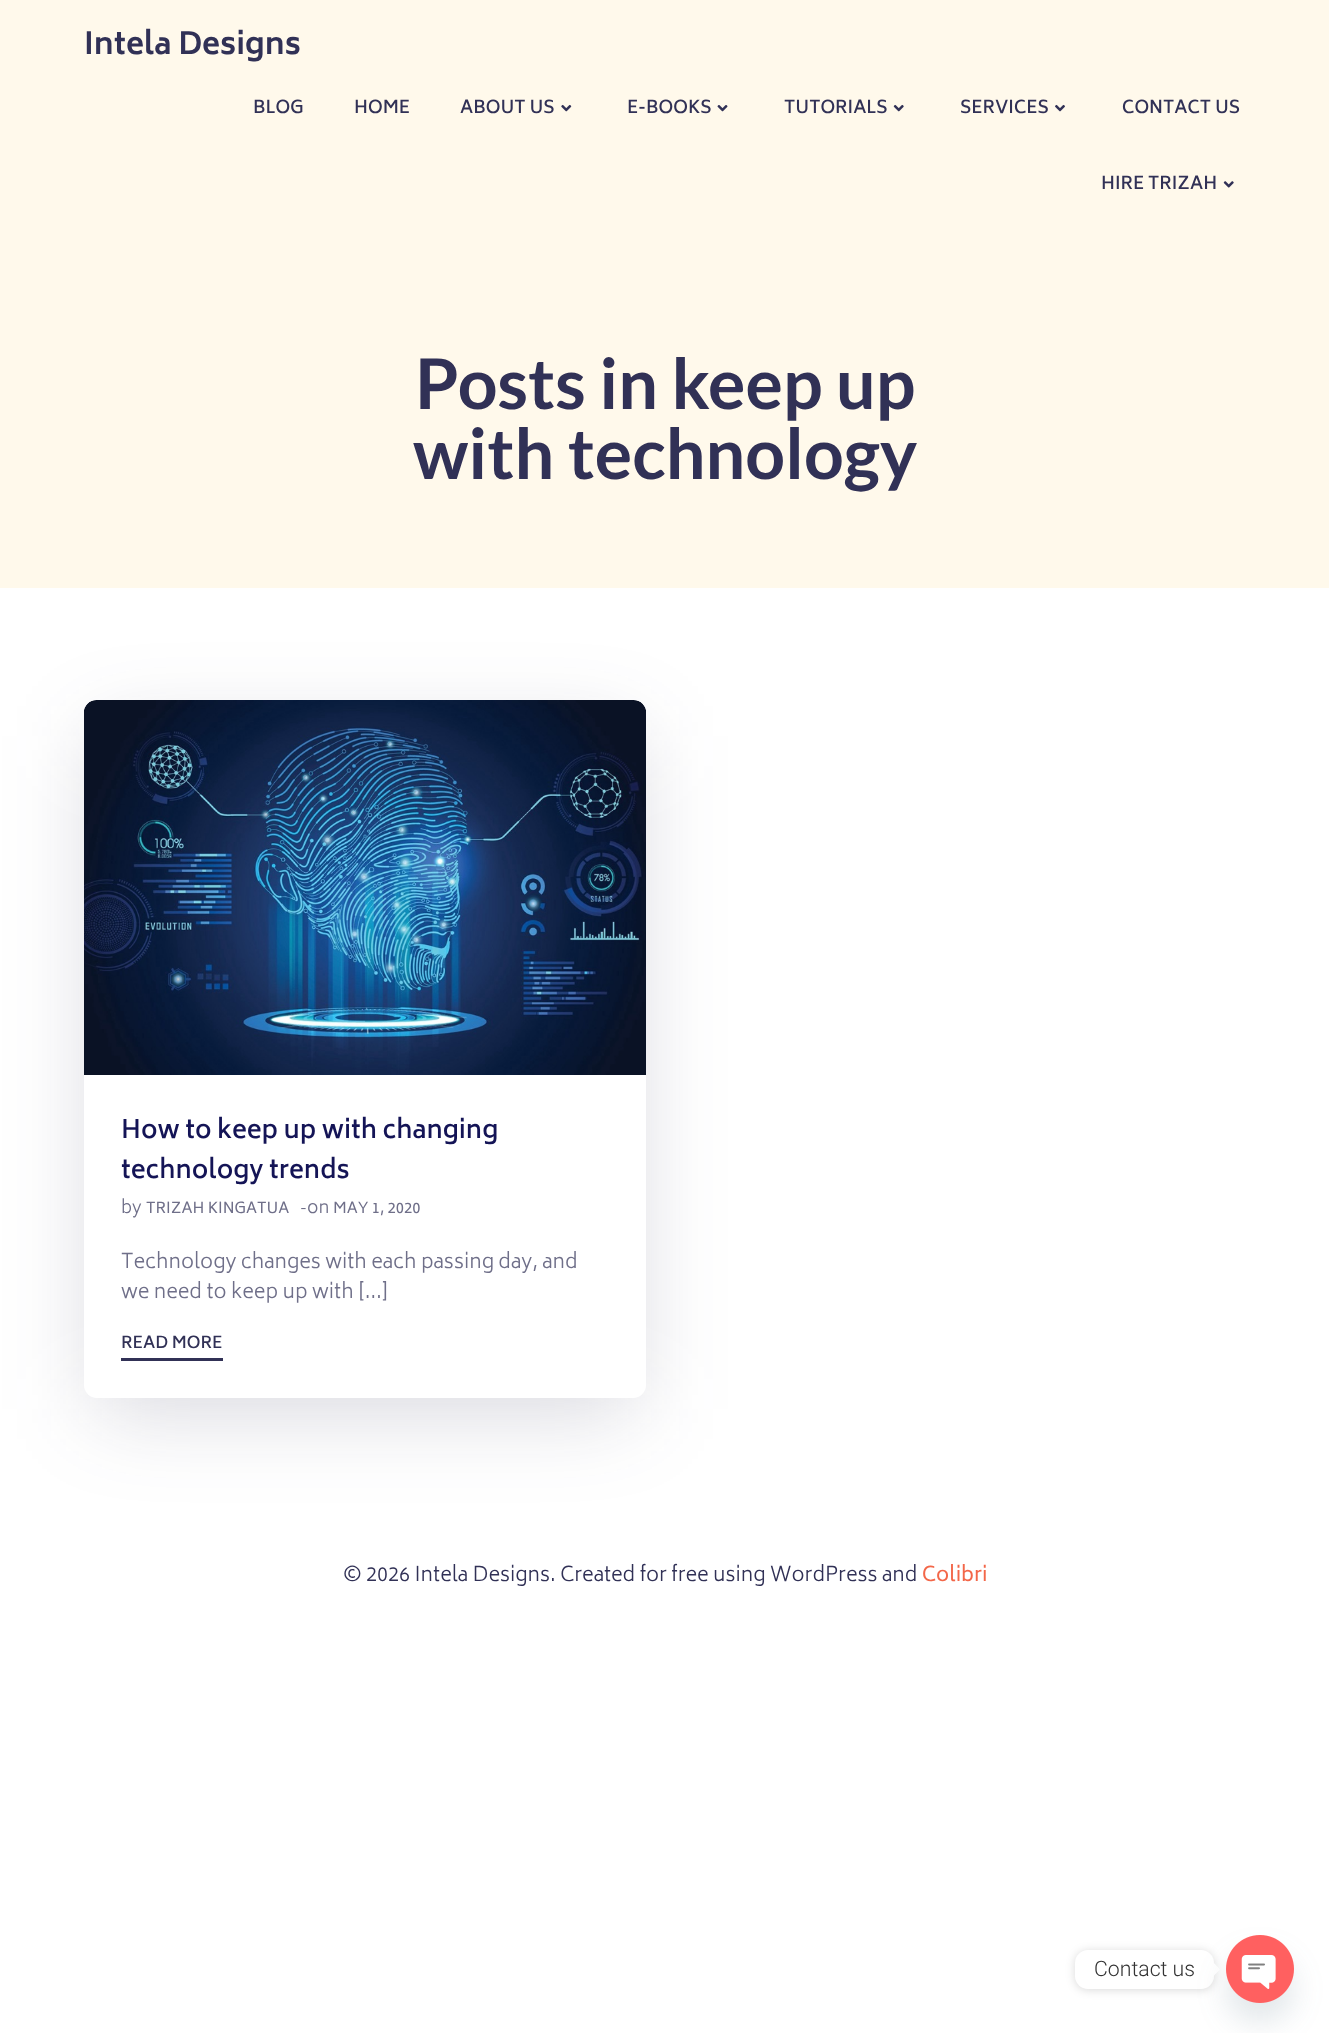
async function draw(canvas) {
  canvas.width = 1329;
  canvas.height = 2033;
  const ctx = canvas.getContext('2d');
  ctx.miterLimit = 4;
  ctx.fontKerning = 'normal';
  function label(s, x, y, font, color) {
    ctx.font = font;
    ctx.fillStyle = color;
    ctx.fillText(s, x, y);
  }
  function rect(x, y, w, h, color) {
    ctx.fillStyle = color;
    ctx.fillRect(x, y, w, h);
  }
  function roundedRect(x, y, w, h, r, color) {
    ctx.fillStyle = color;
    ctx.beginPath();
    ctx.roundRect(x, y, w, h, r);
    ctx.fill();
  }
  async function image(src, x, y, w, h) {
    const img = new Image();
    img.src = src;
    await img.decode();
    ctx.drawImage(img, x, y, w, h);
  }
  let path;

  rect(0, 0, 1329, 2033, '#fff');
  rect(0, 0, 1329, 588, '#fff9eb');
  label('Intela Designs', 84, 54, 'bold 30px Biryani', '#313156');
  label('BLOG', 253, 113, '600 17.5px Biryani', '#313156');
  label('HOME', 354, 113, '600 17.5px Biryani', '#313156');
  label('ABOUT US', 460, 113, '600 17.5px Biryani', '#313156');
  await image('assets/img1.png', 561, 104, 11, 8);
  label('E-BOOKS', 627, 113, '600 17.5px Biryani', '#313156');
  await image('assets/img2.png', 717, 105, 11, 7);
  label('TUTORIALS', 784, 113, '600 17.5px Biryani', '#313156');
  await image('assets/img3.png', 893, 104, 11, 8);
  label('SERVICES', 960, 113, '600 17.5px Biryani', '#313156');
  await image('assets/img4.png', 1055, 104, 10, 8);
  label('CONTACT US', 1122, 113, '600 17.5px Biryani', '#313156');
  label('HIRE TRIZAH', 1101, 189, '600 17.5px Biryani', '#313156');
  await image('assets/img5.png', 1223, 181, 11, 7);
  label('Posts in keep up', 415, 409, 'bold 70px Lato', '#313156');
  label('with technology', 413, 479, 'bold 70px Lato', '#313156');
  ctx.fillStyle = '#31315633';
  ctx.filter = 'blur(44.5px)';
  ctx.beginPath();
  ctx.rect(96, 736, 538, 673);
  ctx.fill();
  ctx.filter = 'none';
  roundedRect(84, 700, 562, 698, 13, '#fff');
  await image('assets/img6.png', 84, 700, 562, 375);
  label('How to keep up with changing', 121, 1138, '600 25px Biryani', '#141456');
  label('technology trends', 121, 1178, '600 25px Biryani', '#141456');
  label('by', 121, 1213, '300 17.5px Biryani', '#6f6f89');
  label('TRIZAH KINGATUA', 146, 1213, '15px Biryani', '#6f6f89');
  label('-', 300, 1213, '300 15px Biryani', '#6f6f89');
  label('on', 307, 1213, '300 17.5px Biryani', '#6f6f89');
  label('MAY 1, 2020', 333, 1213, '15px Biryani', '#6f6f89');
  label('Technology changes with each passing day, and', 121, 1268, '300 20px Biryani', '#6f6f89');
  label('we need to keep up with […]', 121, 1298, '300 20px Biryani', '#6f6f89');
  rect(121, 1358, 102, 3, '#313156');
  label('READ MORE', 121, 1348, '600 16.25px Biryani', '#313156');
  label('© 2026 Intela Designs. Created for free using WordPress and', 343, 1581, '300 20px Biryani', '#313156');
  label('Colibri', 922, 1581, '20px Biryani', '#f36749');
  ctx.fillStyle = '#00000026';
  ctx.filter = 'blur(5px)';
  ctx.beginPath();
  ctx.roundRect(1075, 1951, 139, 39, 13);
  ctx.fill();
  ctx.filter = 'none';
  roundedRect(1075, 1950, 139, 39, 13, '#fff');
  label('Contact us', 1094, 1976, '300 21.25px Roboto', '#333');
  ctx.fillStyle = '#fff';
  path = new Path2D('M1214 1975.5V1963L1220 1969.5Z');
  ctx.fill(path);
  ctx.fillStyle = '#49687e29';
  ctx.filter = 'blur(15px)';
  ctx.beginPath();
  ctx.roundRect(1226, 1955, 68, 68, 34);
  ctx.fill();
  ctx.filter = 'none';
  await image('assets/img7.png', 1226, 1935, 68, 68);
}

draw(document.querySelector('canvas'));
